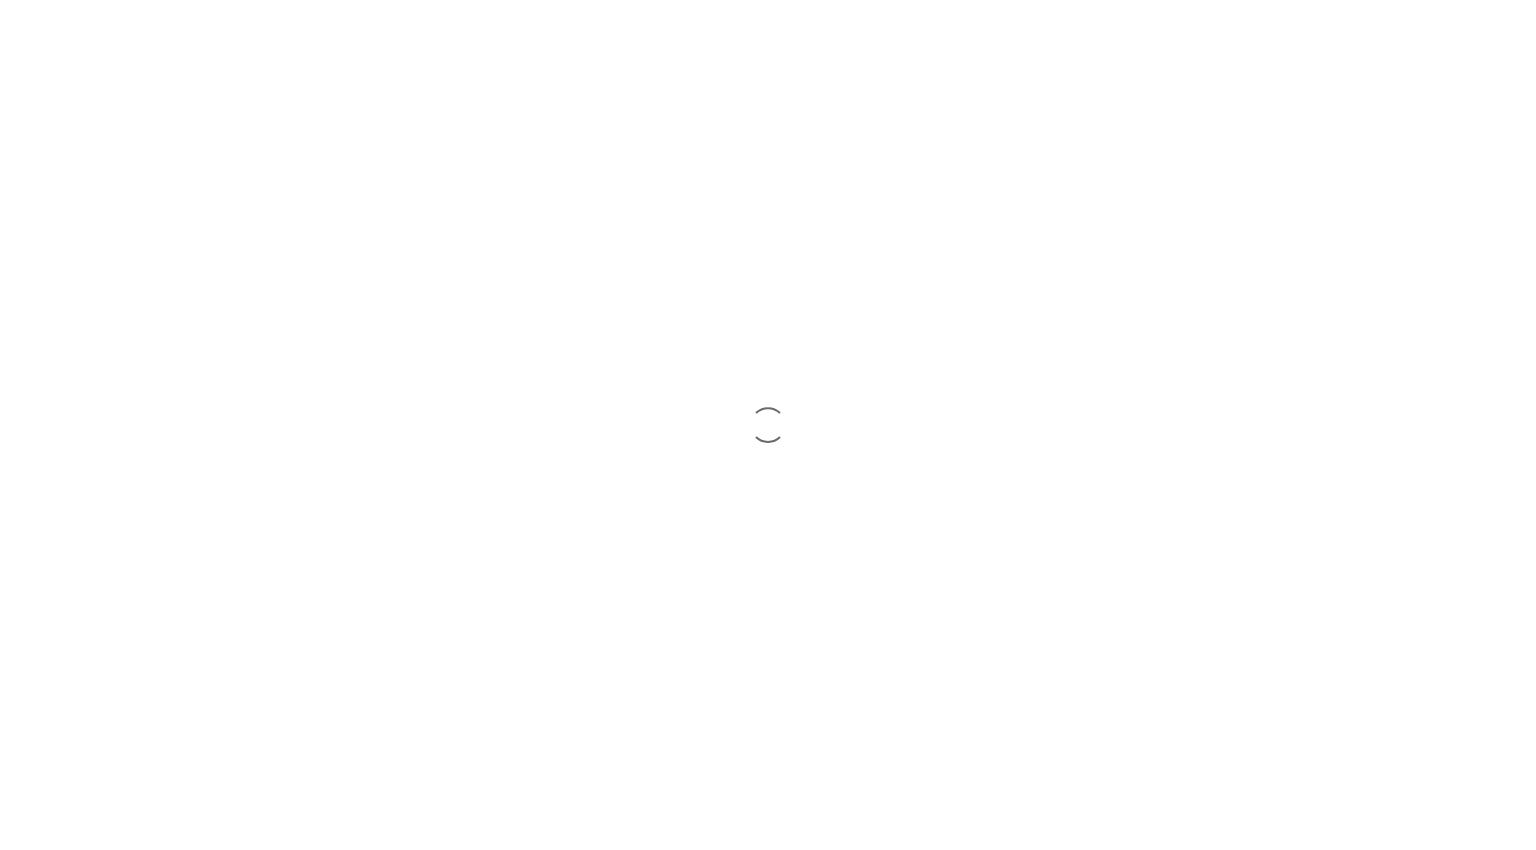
async function draw(canvas) {
  canvas.width = 1536;
  canvas.height = 850;
  const ctx = canvas.getContext('2d');
  ctx.miterLimit = 4;
  ctx.fontKerning = 'normal';
  function rect(x, y, w, h, color) {
    ctx.fillStyle = color;
    ctx.fillRect(x, y, w, h);
  }
  let path;

  rect(0, 0, 1536, 850, '#fff');
  path = new Path2D('M756 413C762.5 406.5 773.5 406.5 780 413M780 437C773.5 443.5 762.5 443.5 756 437');
  ctx.strokeStyle = '#6a6a6a';
  ctx.lineWidth = 2;
  ctx.stroke(path);
}

draw(document.querySelector('canvas'));
